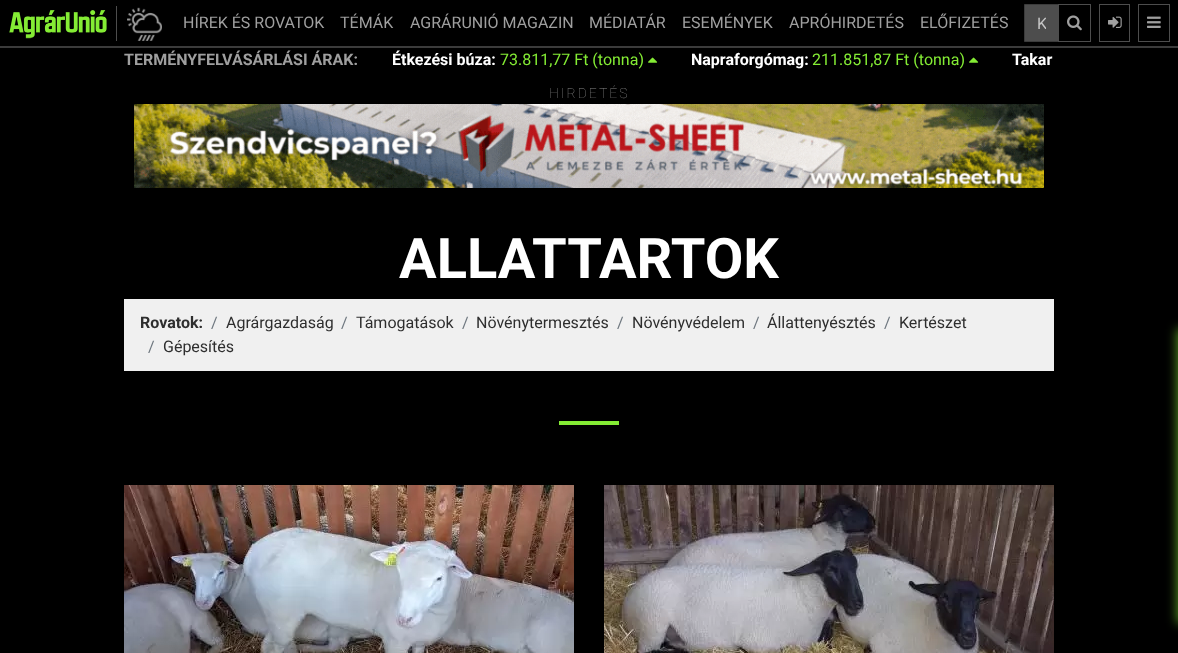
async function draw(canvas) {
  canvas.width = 1178;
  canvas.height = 653;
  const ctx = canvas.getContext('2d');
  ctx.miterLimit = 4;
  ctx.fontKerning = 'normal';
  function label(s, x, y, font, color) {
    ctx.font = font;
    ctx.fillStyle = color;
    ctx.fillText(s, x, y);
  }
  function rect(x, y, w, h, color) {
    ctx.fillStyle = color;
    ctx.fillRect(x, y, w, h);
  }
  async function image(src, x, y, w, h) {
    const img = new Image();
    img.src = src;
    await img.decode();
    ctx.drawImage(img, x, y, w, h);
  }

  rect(0, 0, 1178, 653, '#000');
  rect(0, 46, 1178, 2, '#3b3b3b');
  await image('assets/img1.png', 9, 10, 98, 29);
  rect(116, 6, 1, 35, '#4d4d4d');
  await image('assets/img2.png', 127, 7, 35, 34);
  label('HÍREK ÉS ROVATOK', 183, 28, '16px Roboto', '#9f9f9f');
  label('TÉMÁK', 340, 28, '16px Roboto', '#9f9f9f');
  label('AGRÁRUNIÓ MAGAZIN', 410, 28, '16px Roboto', '#9f9f9f');
  label('MÉDIATÁR', 589, 28, '16px Roboto', '#9f9f9f');
  label('ESEMÉNYEK', 682, 28, '16px Roboto', '#9f9f9f');
  label('APRÓHIRDETÉS', 789, 28, '16px Roboto', '#9f9f9f');
  label('ELŐFIZETÉS', 920, 28, '16px Roboto', '#9f9f9f');
  ctx.fillStyle = '#4d4d4d';
  ctx.beginPath();
  ctx.rect(1024.5, 4.5, 34, 37);
  ctx.fill();
  ctx.strokeStyle = '#3b3b3b';
  ctx.stroke();
  ctx.save();
  ctx.beginPath();
  ctx.rect(1037, 14, 9, 19);
  ctx.clip();
  label('K', 1037, 29, '16px Roboto', '#c5c5c5');
  ctx.restore();
  ctx.strokeStyle = '#4d4d4d';
  ctx.strokeRect(1058.5, 4.5, 32, 37);
  await image('assets/img3.png', 1067, 15, 15, 16);
  ctx.strokeRect(1099.5, 4.5, 30, 37);
  await image('assets/img4.png', 1108, 16, 14, 12);
  ctx.strokeRect(1138.5, 4.5, 31, 37);
  await image('assets/img5.png', 1147, 16, 14, 12);
  label('TERMÉNYFELVÁSÁRLÁSI ÁRAK:', 124, 65, 'bold 16px Roboto', '#9f9f9f');
  label('Étkezési búza:', 392, 65, 'bold 16px Roboto', '#fff');
  label('73.811,77 Ft (tonna)', 500, 65, '16px Roboto', '#84ec34');
  await image('assets/img6.png', 648, 57, 10, 6);
  label('Napraforgómag:', 691, 65, 'bold 16px Roboto', '#fff');
  label('211.851,87 Ft (tonna)', 812, 65, '16px Roboto', '#84ec34');
  await image('assets/img6.png', 969, 57, 10, 6);
  label('Takar', 1012, 65, 'bold 16px Roboto', '#fff');
  ctx.letterSpacing = '2px';
  label('HIRDETÉS', 549, 98, '100 14px Roboto', '#888');
  await image('assets/img7.png', 134, 104, 910, 84);
  ctx.letterSpacing = '0px';
  label('ALLATTARTOK', 399, 278, 'bold 56px Roboto', '#fff');
  rect(124, 299, 930, 72, '#f0f0f0');
  label('Rovatok:', 140, 328, 'bold 16px Roboto', '#2e2e2e');
  label('/', 211, 328, '16px Roboto', '#6c757d');
  label('Agrárgazdaság', 226, 328, '16px Roboto', '#2e2e2e');
  label('/', 341, 328, '16px Roboto', '#6c757d');
  label('Támogatások', 356, 328, '16px Roboto', '#2e2e2e');
  label('/', 462, 328, '16px Roboto', '#6c757d');
  label('Növénytermesztés', 476, 328, '16px Roboto', '#2e2e2e');
  label('/', 617, 328, '16px Roboto', '#6c757d');
  label('Növényvédelem', 632, 328, '16px Roboto', '#2e2e2e');
  label('/', 753, 328, '16px Roboto', '#6c757d');
  label('Állattenyésztés', 767, 328, '16px Roboto', '#2e2e2e');
  label('/', 884, 328, '16px Roboto', '#6c757d');
  label('Kertészet', 899, 328, '16px Roboto', '#2e2e2e');
  label('/', 148, 352, '16px Roboto', '#6c757d');
  label('Gépesítés', 163, 352, '16px Roboto', '#2e2e2e');
  rect(559, 421, 60, 4, '#84ec34');
  await image('assets/img8.png', 124, 485, 450, 168);
  await image('assets/img9.png', 604, 485, 450, 168);
  ctx.fillStyle = '#84ec349e';
  ctx.filter = 'blur(5.5px)';
  ctx.beginPath();
  ctx.rect(1177, 329, 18, 294);
  ctx.fill();
  ctx.filter = 'none';
}

draw(document.querySelector('canvas'));
